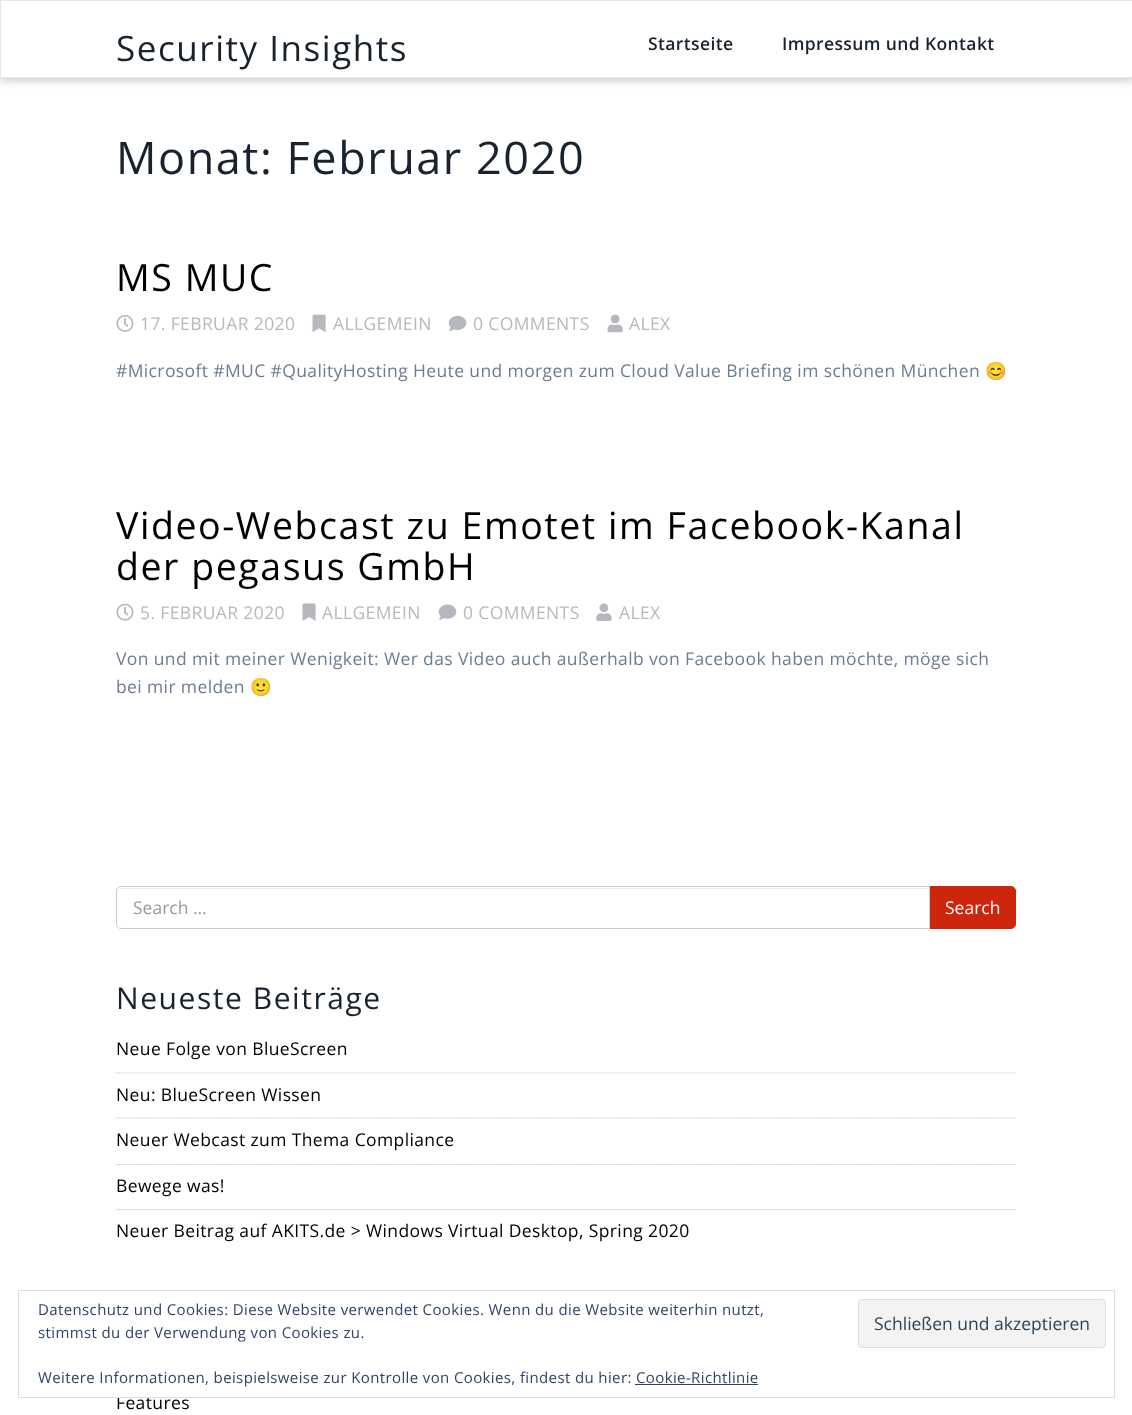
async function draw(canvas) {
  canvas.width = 1132;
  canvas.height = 1415;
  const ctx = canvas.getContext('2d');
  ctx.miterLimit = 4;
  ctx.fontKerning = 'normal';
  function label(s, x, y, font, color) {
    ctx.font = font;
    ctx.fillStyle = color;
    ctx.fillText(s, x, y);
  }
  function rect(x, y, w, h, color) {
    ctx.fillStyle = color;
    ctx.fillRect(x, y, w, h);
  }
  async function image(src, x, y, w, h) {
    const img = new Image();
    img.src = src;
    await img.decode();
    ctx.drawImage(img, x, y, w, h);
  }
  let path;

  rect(0, 0, 1132, 1415, '#fff');
  ctx.fillStyle = '#00000033';
  ctx.filter = 'blur(4px)';
  ctx.beginPath();
  ctx.rect(0, 4, 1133, 77);
  ctx.fill();
  ctx.filter = 'none';
  ctx.fillStyle = '#fff';
  ctx.beginPath();
  ctx.rect(0.5, 0.5, 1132, 77);
  ctx.fill();
  ctx.strokeStyle = '#e7e7e7';
  ctx.stroke();
  ctx.letterSpacing = '1.55px';
  label('Security Insights', 116, 61, '35px Open Sans', '#19232d');
  ctx.letterSpacing = '0.38px';
  label('Startseite', 648, 50, '600 17.5px Open Sans', '#19232d');
  label('Impressum und Kontakt', 782, 50, '600 17.5px Open Sans', '#19232d');
  ctx.letterSpacing = '1.55px';
  label('Monat: Februar 2020', 116, 174, '45px Open Sans', '#19232d');
  label('MS MUC', 116, 291, '37.5px Open Sans', '#000');
  await image('assets/img1.png', 116, 315, 18, 17);
  ctx.letterSpacing = '0.38px';
  label('17. FEBRUAR 2020', 140, 330, '17.5px Open Sans', '#b5b8bf');
  await image('assets/img2.png', 312, 314, 14, 18);
  label('ALLGEMEIN', 333, 330, '17.5px Open Sans', '#b5b8bf');
  await image('assets/img3.png', 448, 315, 19, 16);
  label('0 COMMENTS', 473, 330, '17.5px Open Sans', '#b5b8bf');
  await image('assets/img4.png', 607, 314, 16, 19);
  label('ALEX', 629, 330, '17.5px Open Sans', '#b5b8bf');
  label('#Microsoft #MUC #QualityHosting Heute und morgen zum Cloud Value Briefing im schönen München', 116, 377, '17.5px Open Sans', '#6b7c93');
  label('😊', 985, 377, '17.5px Noto Color Emoji', '#6b7c93');
  ctx.letterSpacing = '1.55px';
  label('Video-Webcast zu Emotet im Facebook-Kanal', 116, 539, '37.5px Open Sans', '#000');
  label('der pegasus GmbH', 116, 580, '37.5px Open Sans', '#000');
  await image('assets/img5.png', 116, 603, 18, 18);
  ctx.letterSpacing = '0.38px';
  label('5. FEBRUAR 2020', 140, 619, '17.5px Open Sans', '#b5b8bf');
  await image('assets/img6.png', 302, 603, 14, 18);
  label('ALLGEMEIN', 322, 619, '17.5px Open Sans', '#b5b8bf');
  await image('assets/img7.png', 438, 604, 19, 16);
  label('0 COMMENTS', 463, 619, '17.5px Open Sans', '#b5b8bf');
  await image('assets/img8.png', 596, 603, 16, 18);
  label('ALEX', 619, 619, '17.5px Open Sans', '#b5b8bf');
  label('Von und mit meiner Wenigkeit: Wer das Video auch außerhalb von Facebook haben möchte, möge sich', 116, 665, '17.5px Open Sans', '#6b7c93');
  label('bei mir melden', 116, 693, '17.5px Open Sans', '#6b7c93');
  label('🙂', 250, 693, '17.5px Noto Color Emoji', '#6b7c93');
  ctx.fillStyle = '#ce260c';
  ctx.beginPath();
  ctx.roundRect(929.5, 886.5, 86, 42, [0, 4.5, 4.5, 0]);
  ctx.fill();
  ctx.strokeStyle = '#ce260c';
  ctx.stroke();
  ctx.fillStyle = '#fff';
  ctx.beginPath();
  ctx.roundRect(116, 886, 814, 43, [5, 0, 0, 5]);
  ctx.fill();
  ctx.fillStyle = '#ececec';
  path = new Path2D('M121 889H929V888H122C121 888 119 889 119 890Z');
  ctx.fill(path);
  ctx.beginPath();
  ctx.roundRect(116.5, 886.5, 813, 42, [4.5, 0, 0, 4.5]);
  ctx.strokeStyle = '#ccc';
  ctx.stroke();
  ctx.letterSpacing = '0px';
  label('Search …', 133, 914, '17.5px Open Sans', '#999');
  label('Search', 945, 914, '17.5px Open Sans', '#fff');
  ctx.letterSpacing = '1.55px';
  label('Neueste Beiträge', 116, 1009, '30px Open Sans', '#19232d');
  path = new Path2D('M116 1073H1016');
  ctx.strokeStyle = '#b7c6d3';
  ctx.lineWidth = 1.2;
  ctx.setLineDash([1.25, 1.25]);
  ctx.stroke(path);
  ctx.letterSpacing = '0.38px';
  label('Neue Folge von BlueScreen', 116, 1055, '17.5px Open Sans', '#000');
  path = new Path2D('M116 1118H1016');
  ctx.stroke(path);
  label('Neu: BlueScreen Wissen', 116, 1101, '17.5px Open Sans', '#000');
  path = new Path2D('M116 1164.5H1016');
  ctx.stroke(path);
  label('Neuer Webcast zum Thema Compliance', 116, 1146, '17.5px Open Sans', '#000');
  path = new Path2D('M116 1209.5H1016');
  ctx.stroke(path);
  label('Bewege was!', 116, 1192, '17.5px Open Sans', '#000');
  label('Neuer Beitrag auf AKITS.de > Windows Virtual Desktop, Spring 2020', 116, 1237, '17.5px Open Sans', '#000');
  label('Features', 116, 1409, '17.5px Open Sans', '#000');
  rect(117, 1396, 8, 1, '#fff');
  ctx.strokeStyle = '#dedede';
  ctx.lineWidth = 1;
  ctx.setLineDash([]);
  ctx.strokeRect(18.5, 1290.5, 1096, 107);
  label('Datenschutz und Cookies: Diese Website verwendet Cookies. Wenn du die Website weiterhin nutzt,', 38, 1315, '15px Open Sans', '#2e4467');
  label('stimmst du der Verwendung von Cookies zu.', 38, 1338, '15px Open Sans', '#2e4467');
  ctx.fillStyle = '#f3f3f3';
  ctx.beginPath();
  ctx.roundRect(858.5, 1299.5, 247, 48, 3.5);
  ctx.fill();
  ctx.stroke();
  ctx.letterSpacing = '0px';
  label('Schließen und akzeptieren', 874, 1330, '17.5px Open Sans', '#2e4453');
  ctx.letterSpacing = '0.38px';
  label('Weitere Informationen, beispielsweise zur Kontrolle von Cookies, findest du hier: Cookie-Richtlinie', 38, 1383, '15px Open Sans', '#2e4467');
  rect(635, 1384, 123, 1, '#2e4467');
}

draw(document.querySelector('canvas'));
